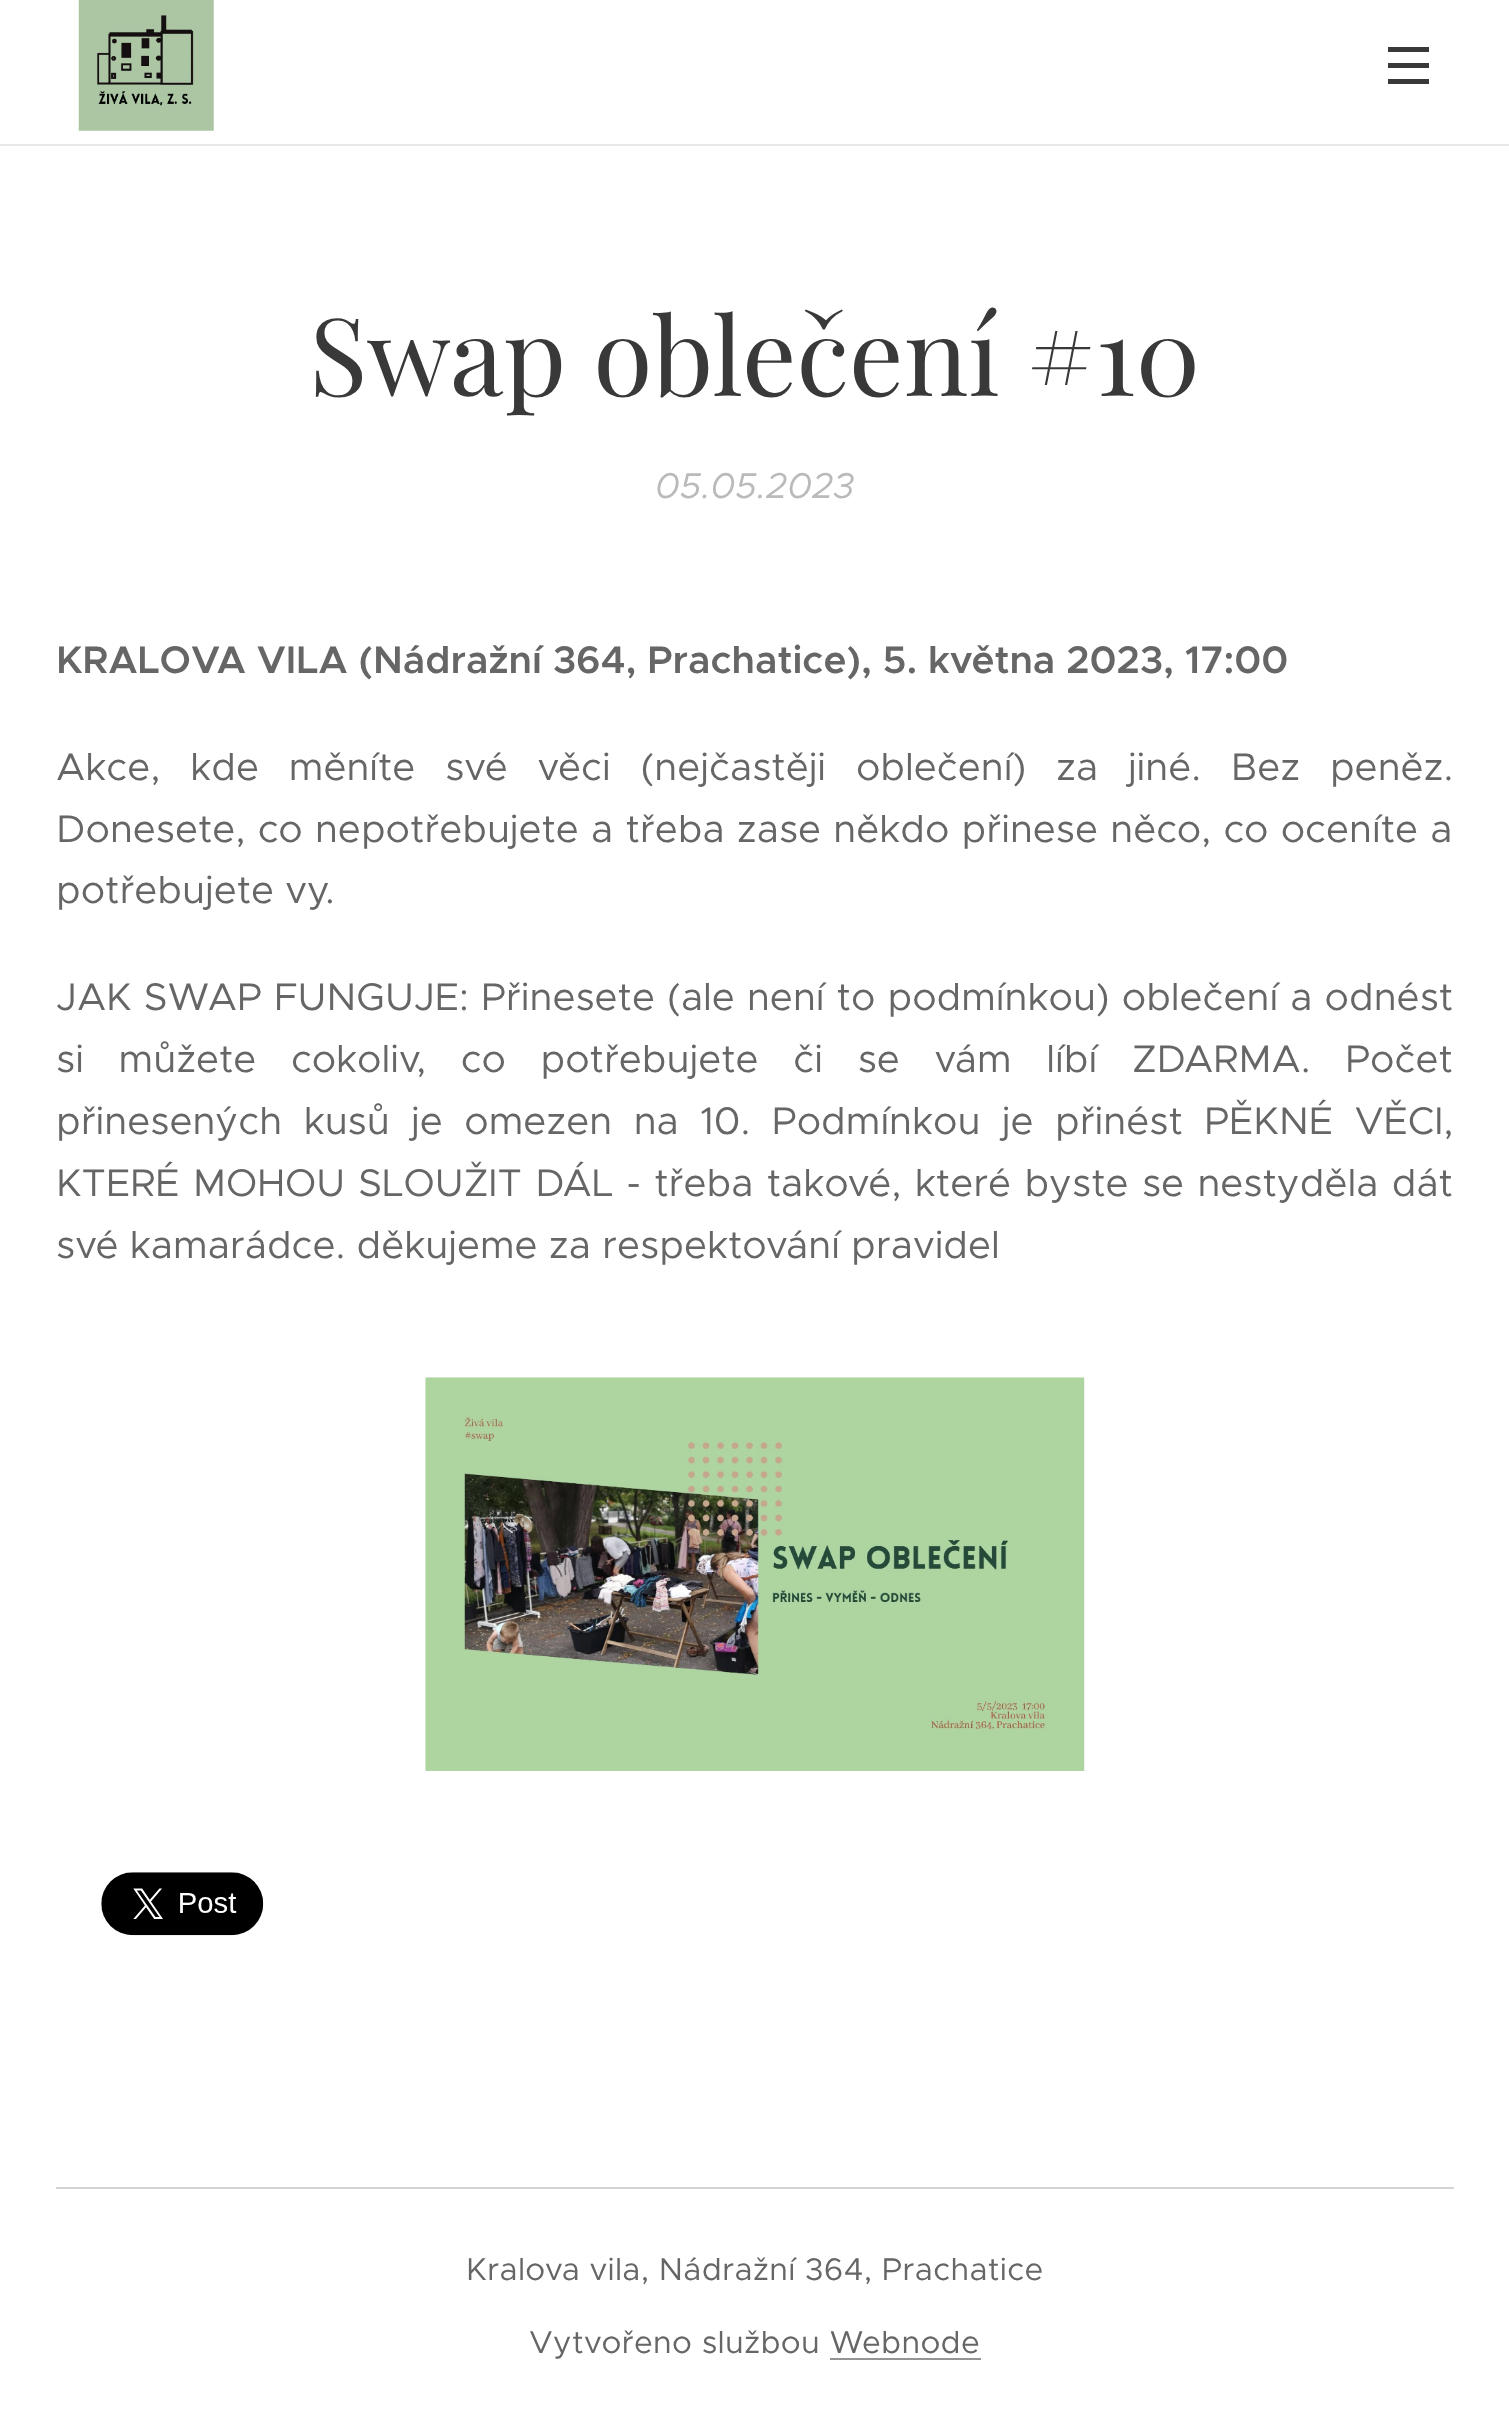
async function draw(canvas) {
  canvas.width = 1509;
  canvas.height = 2423;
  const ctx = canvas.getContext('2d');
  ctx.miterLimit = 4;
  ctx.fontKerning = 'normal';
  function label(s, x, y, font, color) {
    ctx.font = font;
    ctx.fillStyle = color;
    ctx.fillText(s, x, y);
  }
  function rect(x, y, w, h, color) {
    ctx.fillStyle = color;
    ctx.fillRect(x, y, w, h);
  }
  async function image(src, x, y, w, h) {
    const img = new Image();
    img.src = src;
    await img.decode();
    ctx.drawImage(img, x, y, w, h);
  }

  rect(0, 0, 1509, 2423, '#fff');
  await image('assets/img1.png', 78, 0, 136, 131);
  rect(1388, 63, 41, 5, '#393939');
  rect(1388, 47, 41, 5, '#393939');
  rect(1388, 79, 41, 5, '#393939');
  rect(0, 144, 1509, 2, '#e8e8e8');
  label('Swap oblečení #10', 309, 396, '108px Playfair Display', '#393939');
  label('05.05.2023', 655, 498, 'italic 36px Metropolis', '#bababa');
  label('KRALOVA VILA (Nádražní 364, Prachatice), 5. května 2023, 17:00', 56, 673, '600 38.7px Metropolis', '#666');
  ctx.wordSpacing = '18.6px';
  label('Akce, kde měníte své věci (nejčastěji oblečení) za jiné. Bez peněz.', 56, 780, '38.7px Metropolis', '#666');
  ctx.wordSpacing = '1px';
  label('Donesete, co nepotřebujete a třeba zase někdo přinese něco, co oceníte a', 56, 842, '38.7px Metropolis', '#666');
  ctx.wordSpacing = '0px';
  label('potřebujete vy.', 56, 903, '38.7px Metropolis', '#666');
  ctx.wordSpacing = '0.9px';
  label('JAK SWAP FUNGUJE: Přinesete (ale není to podmínkou) oblečení a odnést', 56, 1010, '38.7px Metropolis', '#666');
  ctx.wordSpacing = '23.5px';
  label('si můžete cokoliv, co potřebujete či se vám líbí ZDARMA. Počet', 56, 1072, '38.7px Metropolis', '#666');
  ctx.wordSpacing = '10.25px';
  label('přinesených kusů je omezen na 10. Podmínkou je přinést PĚKNÉ VĚCI,', 56, 1134, '38.7px Metropolis', '#666');
  ctx.wordSpacing = '2.1px';
  label('KTERÉ MOHOU SLOUŽIT DÁL - třeba takové, které byste se nestyděla dát', 56, 1196, '38.7px Metropolis', '#666');
  ctx.wordSpacing = '0px';
  label('své kamarádce. děkujeme za respektování pravidel', 56, 1258, '38.7px Metropolis', '#666');
  await image('assets/img2.png', 425, 1377, 660, 394);
  await image('assets/img3.png', 101, 1872, 163, 64);
  rect(56, 2187, 1398, 2, '#d4d4d4');
  ctx.letterSpacing = '0.3px';
  label('Kralova vila, Nádražní 364, Prachatice', 466, 2280, '31.5px Metropolis', '#666');
  label('Vytvořeno službou Webnode', 529, 2353, '31.5px Metropolis', '#666');
  rect(830, 2358, 151, 2, '#949494');
}

draw(document.querySelector('canvas'));
